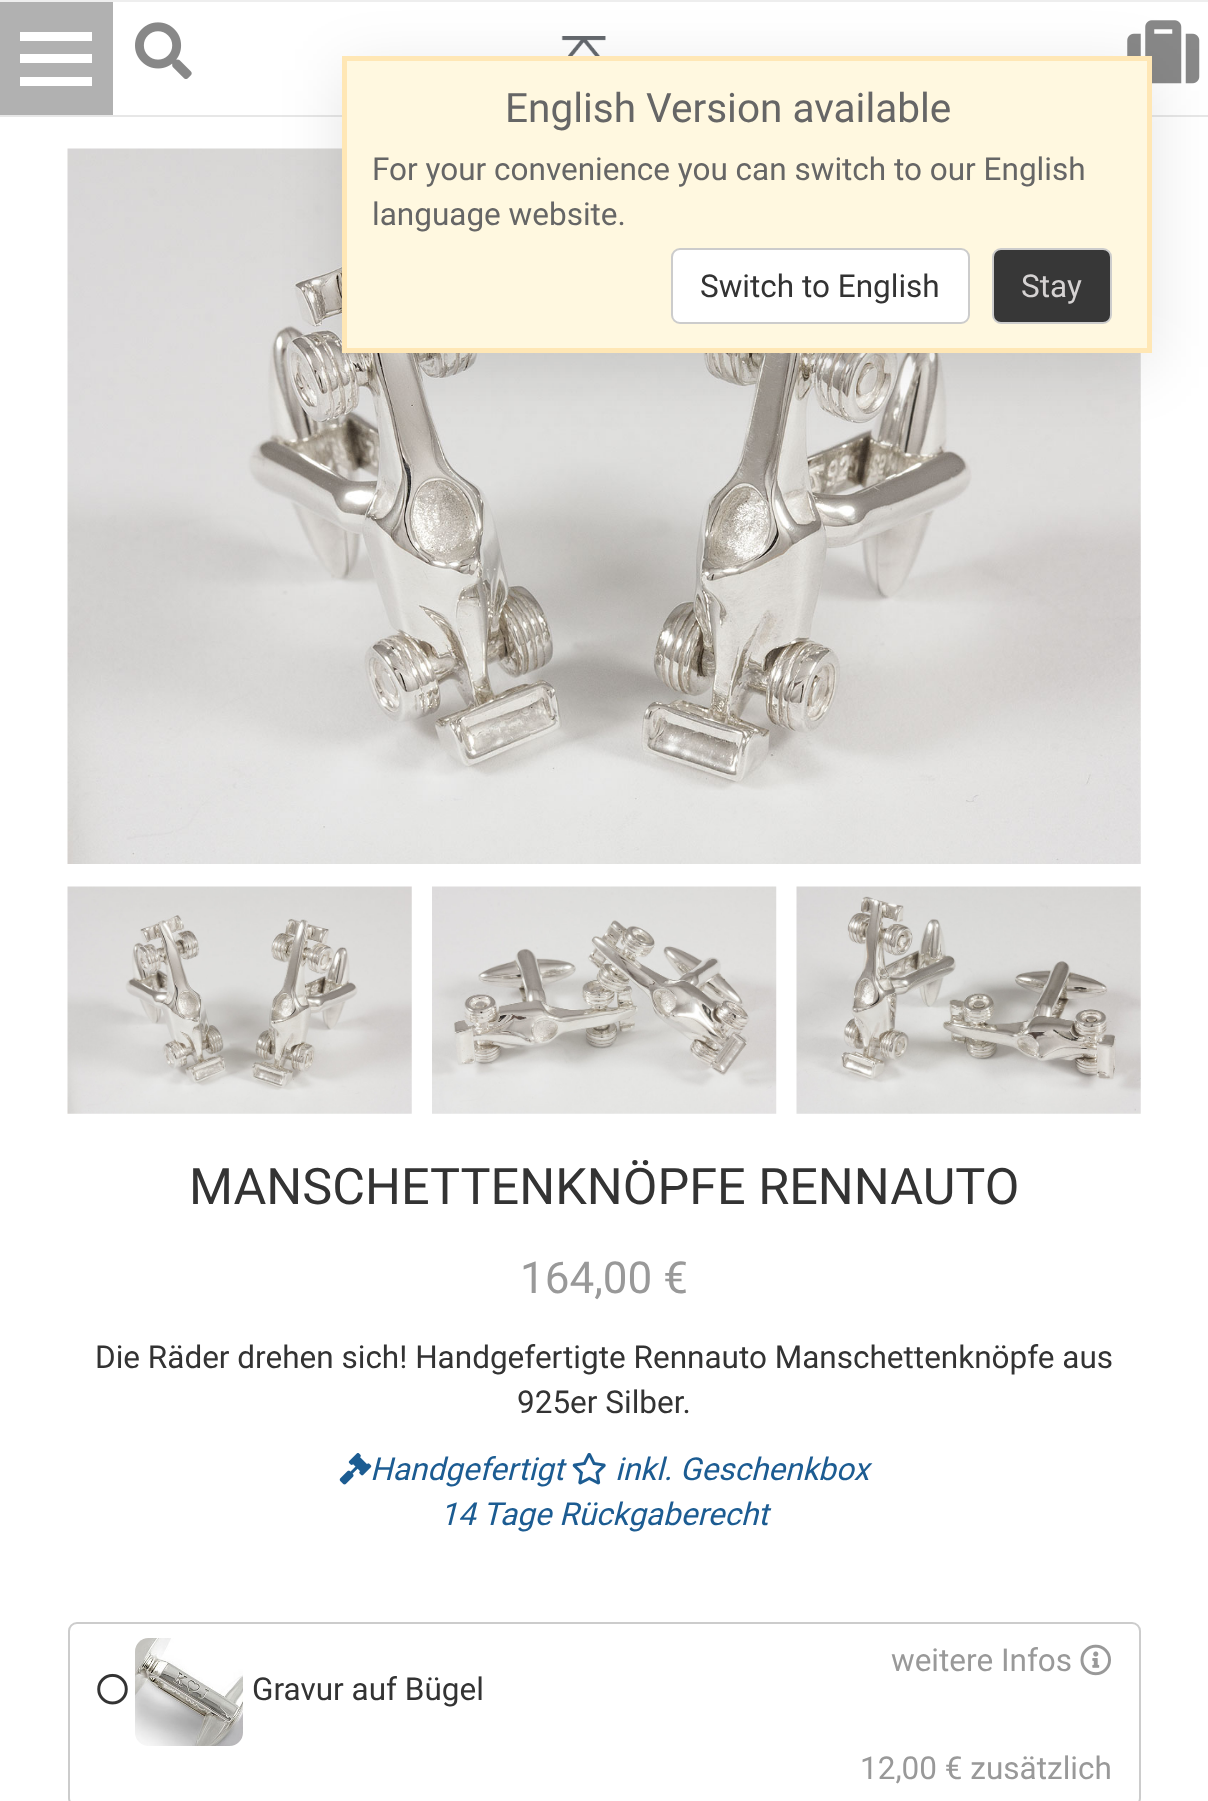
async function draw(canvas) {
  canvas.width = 1208;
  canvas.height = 1801;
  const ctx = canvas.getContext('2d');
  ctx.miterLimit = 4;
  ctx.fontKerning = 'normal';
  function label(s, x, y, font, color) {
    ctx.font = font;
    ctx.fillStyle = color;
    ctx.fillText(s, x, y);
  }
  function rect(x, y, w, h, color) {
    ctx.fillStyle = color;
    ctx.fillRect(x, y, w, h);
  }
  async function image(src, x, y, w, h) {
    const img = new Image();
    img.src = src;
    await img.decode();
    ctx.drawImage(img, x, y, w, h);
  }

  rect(0, 0, 1208, 1801, '#fff');
  rect(0, 0, 1208, 2, '#eee');
  rect(0, 115, 1208, 2, '#e7e7e7');
  rect(0, 2, 113, 113, '#b1b1b1');
  rect(20, 54, 72, 9, '#fff');
  rect(20, 32, 72, 9, '#fff');
  rect(20, 77, 72, 9, '#fff');
  await image('assets/img1.png', 135, 22, 57, 57);
  await image('assets/img2.png', 561, 36, 45, 20);
  await image('assets/img3.png', 1127, 20, 73, 64);
  await image('assets/img4.png', 67, 148, 1074, 716);
  ctx.fillStyle = '#0000001a';
  ctx.filter = 'blur(31.5px)';
  ctx.beginPath();
  ctx.rect(342, 70, 810, 297);
  ctx.fill();
  ctx.filter = 'none';
  ctx.fillStyle = '#fff8e0';
  ctx.beginPath();
  ctx.rect(344.5, 58.5, 805, 292);
  ctx.fill();
  ctx.strokeStyle = '#ffe7b5';
  ctx.lineWidth = 5;
  ctx.stroke();
  label('English Version available', 505, 122, '40.5px Roboto', '#666');
  label('For your convenience you can switch to our English', 372, 180, '31.5px Roboto', '#666');
  label('language website.', 372, 225, '31.5px Roboto', '#666');
  ctx.fillStyle = '#fff';
  ctx.beginPath();
  ctx.roundRect(672, 249, 297, 74, 8);
  ctx.fill();
  ctx.strokeStyle = '#ccc';
  ctx.lineWidth = 2;
  ctx.stroke();
  label('Switch to English', 700, 297, '31.5px Roboto', '#333');
  ctx.fillStyle = '#373737';
  ctx.beginPath();
  ctx.roundRect(993, 249, 118, 74, 8);
  ctx.fill();
  ctx.stroke();
  label('Stay', 1021, 297, '31.5px Roboto', '#d5d2d2');
  await image('assets/img5.png', 67, 886, 345, 228);
  await image('assets/img6.png', 432, 886, 345, 228);
  await image('assets/img7.png', 796, 886, 345, 228);
  label('MANSCHETTENKNÖPFE RENNAUTO', 189, 1204, '50.4px Roboto', '#333');
  label('164,00 €', 520, 1293, '44px Roboto', '#999');
  label('Die Räder drehen sich! Handgefertigte Rennauto Manschettenknöpfe aus', 95, 1368, '31.5px Roboto', '#333');
  label('925er Silber.', 517, 1413, '31.5px Roboto', '#333');
  await image('assets/img8.png', 339, 1453, 33, 32);
  label('Handgefertigt', 370, 1480, 'italic 31.5px Roboto', '#1c5c92');
  await image('assets/img9.png', 572, 1452, 34, 33);
  label('inkl. Geschenkbox', 615, 1480, 'italic 31.5px Roboto', '#1c5c92');
  label('14 Tage Rückgaberecht', 440, 1525, 'italic 31.5px Roboto', '#1c5c92');
  ctx.beginPath();
  ctx.roundRect(69, 1623, 1071, 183, 8);
  ctx.stroke();
  await image('assets/img10.png', 97, 1673, 31, 32);
  await image('assets/img11.png', 135, 1638, 108, 108);
  label('weitere Infos', 891, 1671, '31.5px Roboto', '#999');
  await image('assets/img12.png', 1080, 1644, 31, 32);
  label('Gravur auf Bügel', 252, 1700, '31.5px Roboto', '#333');
  label('12,00 € zusätzlich', 860, 1779, '31.5px Roboto', '#999');
}

draw(document.querySelector('canvas'));
